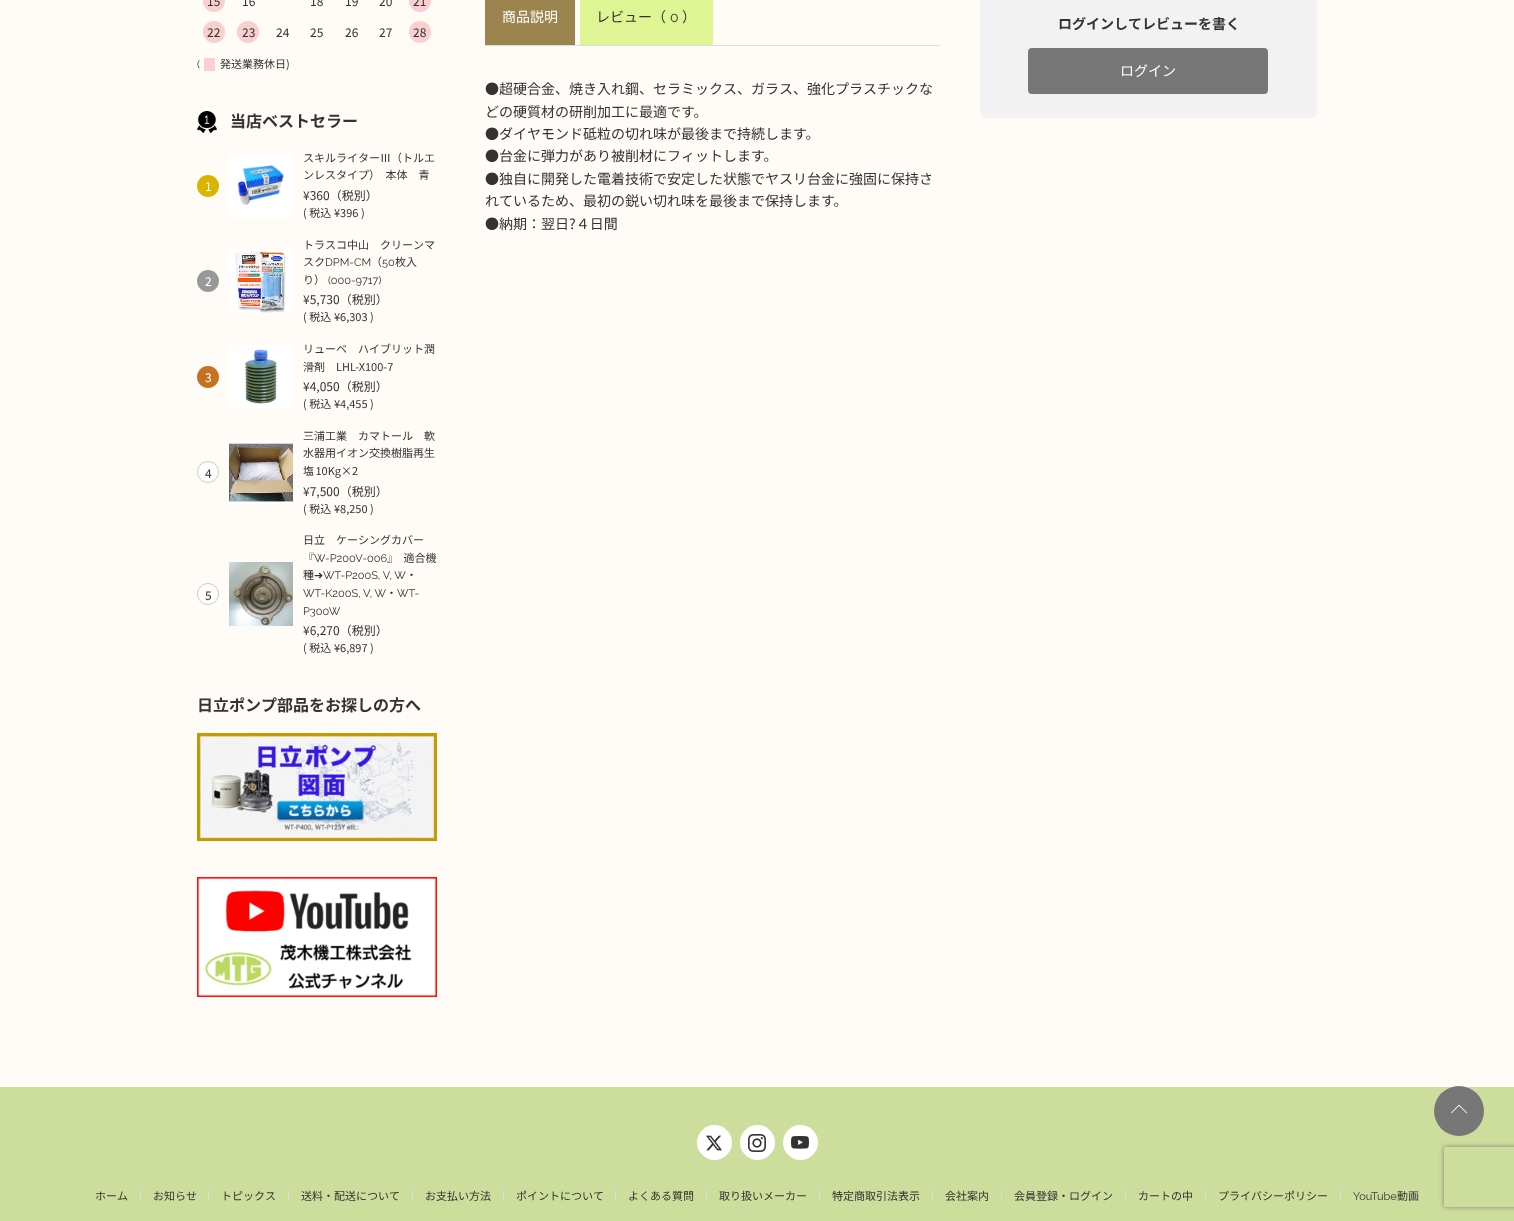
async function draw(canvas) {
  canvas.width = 1514;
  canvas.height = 1221;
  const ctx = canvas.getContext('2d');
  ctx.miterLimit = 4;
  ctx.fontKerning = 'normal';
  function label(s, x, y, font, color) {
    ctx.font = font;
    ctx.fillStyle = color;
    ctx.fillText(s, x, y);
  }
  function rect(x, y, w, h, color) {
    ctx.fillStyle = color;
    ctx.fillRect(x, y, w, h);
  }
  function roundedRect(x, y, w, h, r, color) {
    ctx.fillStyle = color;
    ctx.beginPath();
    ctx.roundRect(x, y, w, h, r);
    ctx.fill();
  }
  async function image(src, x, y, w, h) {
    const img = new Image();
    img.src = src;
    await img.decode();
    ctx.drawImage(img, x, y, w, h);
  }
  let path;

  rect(0, 0, 1514, 1221, '#fffcf7');
  ctx.fillStyle = '#f9cfcf';
  ctx.beginPath();
  ctx.arc(214, 1, 11, 0, 2 * Math.PI);
  ctx.fill();
  label('15', 207, 6, '12px Noto Sans JP', '#333');
  label('16', 242, 6, '12px Noto Sans JP', '#333');
  label('18', 310, 6, '12px Noto Sans JP', '#333');
  label('19', 345, 6, '12px Noto Sans JP', '#333');
  label('20', 379, 6, '12px Noto Sans JP', '#333');
  ctx.fillStyle = '#f9cfcf';
  ctx.beginPath();
  ctx.arc(420, 1, 11, 0, 2 * Math.PI);
  ctx.fill();
  label('21', 413, 6, '12px Noto Sans JP', '#333');
  ctx.fillStyle = '#f9cfcf';
  ctx.beginPath();
  ctx.arc(214, 32, 11, 0, 2 * Math.PI);
  ctx.fill();
  label('22', 207, 37, '12px Noto Sans JP', '#333');
  ctx.fillStyle = '#f9cfcf';
  ctx.beginPath();
  ctx.arc(248, 32, 11, 0, 2 * Math.PI);
  ctx.fill();
  label('23', 242, 37, '12px Noto Sans JP', '#333');
  label('24', 276, 37, '12px Noto Sans JP', '#333');
  label('25', 310, 37, '12px Noto Sans JP', '#333');
  label('26', 345, 37, '12px Noto Sans JP', '#333');
  label('27', 379, 37, '12px Noto Sans JP', '#333');
  ctx.fillStyle = '#f9cfcf';
  ctx.beginPath();
  ctx.arc(420, 32, 11, 0, 2 * Math.PI);
  ctx.fill();
  label('28', 413, 37, '12px Noto Sans JP', '#333');
  label('(', 197, 68, '11px Raleway', '#333');
  rect(204, 58, 11, 13, '#f9cfcf');
  label('発送業務休日)', 220, 68, '11px Noto Sans JP', '#333');
  await image('assets/img1.png', 197, 111, 20, 22);
  label('当店ベストセラー', 230, 127, 'bold 16px Noto Sans JP', '#333');
  ctx.fillStyle = '#dbb400';
  ctx.beginPath();
  ctx.arc(208, 186, 11, 0, 2 * Math.PI);
  ctx.fill();
  label('1', 205, 191, '12px Noto Sans JP', '#fff');
  await image('assets/img2.png', 229, 154, 64, 64);
  label('スキルライターⅢ（トルエ', 303, 162, '11px Noto Sans JP', '#333');
  label('ンレスタイプ）　本体　青', 303, 179, '11px Noto Sans JP', '#333');
  label('¥360（税別）', 303, 200, '12px Noto Sans JP', '#333');
  label('( 税込', 303, 217, '11px Noto Sans JP', '#333');
  label('¥396 )', 334, 217, '11px Noto Sans JP', '#333');
  ctx.fillStyle = '#999';
  ctx.beginPath();
  ctx.arc(208, 281, 11, 0, 2 * Math.PI);
  ctx.fill();
  label('2', 205, 286, '12px Noto Sans JP', '#fff');
  await image('assets/img3.png', 229, 249, 64, 64);
  label('トラスコ中山　クリーンマ', 303, 249, '11px Noto Sans JP', '#333');
  label('スク', 303, 266, '11px Noto Sans JP', '#333');
  label('DPM-CM', 325, 266, '11px Raleway', '#333');
  label('（', 371, 266, '11px Noto Sans JP', '#333');
  label('50', 382, 266, '11px Raleway', '#333');
  label('枚入', 395, 266, '11px Noto Sans JP', '#333');
  label('り）', 303, 284, '11px Noto Sans JP', '#333');
  label('(000-9717)', 328, 284, '11px Raleway', '#333');
  label('¥5,730（税別）', 303, 304, '12px Noto Sans JP', '#333');
  label('( 税込', 303, 321, '11px Noto Sans JP', '#333');
  label('¥6,303 )', 334, 321, '11px Noto Sans JP', '#333');
  ctx.fillStyle = '#c47222';
  ctx.beginPath();
  ctx.arc(208, 377, 11, 0, 2 * Math.PI);
  ctx.fill();
  label('3', 205, 382, '12px Noto Sans JP', '#fff');
  await image('assets/img4.png', 229, 345, 64, 64);
  label('リューベ　ハイブリット潤', 303, 353, '11px Noto Sans JP', '#333');
  label('滑剤　LHL-X100-7', 303, 371, '11px Noto Sans JP', '#333');
  label('¥4,050（税別）', 303, 391, '12px Noto Sans JP', '#333');
  label('( 税込', 303, 408, '11px Noto Sans JP', '#333');
  label('¥4,455 )', 334, 408, '11px Noto Sans JP', '#333');
  ctx.fillStyle = '#fff';
  ctx.beginPath();
  ctx.arc(208, 472, 10.5, 0, 2 * Math.PI);
  ctx.fill();
  ctx.strokeStyle = '#ccc';
  ctx.stroke();
  label('4', 205, 478, '12px Noto Sans JP', '#333');
  await image('assets/img5.png', 229, 440, 64, 64);
  label('三浦工業　カマトール　軟', 303, 440, '11px Noto Sans JP', '#333');
  label('水器用イオン交換樹脂再生', 303, 457, '11px Noto Sans JP', '#333');
  ctx.wordSpacing = '-1px';
  label('塩 10Kg×2', 303, 475, '11px Noto Sans JP', '#333');
  ctx.wordSpacing = '0px';
  label('¥7,500（税別）', 303, 496, '12px Noto Sans JP', '#333');
  label('( 税込', 303, 513, '11px Noto Sans JP', '#333');
  label('¥8,250 )', 334, 513, '11px Noto Sans JP', '#333');
  ctx.fillStyle = '#fff';
  ctx.beginPath();
  ctx.arc(208, 594, 10.5, 0, 2 * Math.PI);
  ctx.fill();
  ctx.stroke();
  label('5', 205, 600, '12px Noto Sans JP', '#333');
  await image('assets/img6.png', 229, 562, 64, 64);
  label('日立　ケーシングカバー', 303, 544, '11px Noto Sans JP', '#333');
  label('『', 303, 562, '11px Noto Sans JP', '#333');
  label('W-P200V-006', 314, 562, '11px Raleway', '#333');
  label('』　適合機', 387, 562, '11px Noto Sans JP', '#333');
  label('種', 303, 579, '11px Noto Sans JP', '#333');
  label('➜', 314, 579, '11px DejaVu Sans', '#333');
  label('WT-P200S, V, W', 323, 579, '11px Raleway', '#333');
  label('・', 406, 579, '11px Noto Sans JP', '#333');
  label('WT-K200S, V, W', 303, 597, '11px Raleway', '#333');
  label('・', 386, 597, '11px Noto Sans JP', '#333');
  label('WT-', 397, 597, '11px Raleway', '#333');
  label('P300W', 303, 615, '11px Raleway', '#333');
  label('¥6,270（税別）', 303, 635, '12px Noto Sans JP', '#333');
  label('( 税込', 303, 652, '11px Noto Sans JP', '#333');
  label('¥6,897 )', 334, 652, '11px Noto Sans JP', '#333');
  label('日立ポンプ部品をお探しの方へ', 197, 711, 'bold 16px Noto Sans JP', '#333');
  await image('assets/img7.png', 197, 733, 240, 108);
  await image('assets/img8.png', 197, 877, 240, 120);
  rect(485, 45, 455, 1, '#ddd');
  rect(485, 0, 90, 45, '#9b844d');
  label('商品説明', 502, 22, '14px Noto Sans JP', '#fff');
  rect(580, 0, 133, 45, '#dff492');
  label('レビュー（', 596, 22, '14px Noto Sans JP', '#333');
  label('0', 670, 22, '14px Raleway', '#333');
  label('）', 682, 22, '14px Noto Sans JP', '#333');
  label('●超硬合金、焼き入れ鋼、セラミックス、ガラス、強化プラスチックな', 485, 94, '14px Noto Sans JP', '#333');
  label('どの硬質材の研削加工に最適です。', 485, 117, '14px Noto Sans JP', '#333');
  label('●ダイヤモンド砥粒の切れ味が最後まで持続します。', 485, 139, '14px Noto Sans JP', '#333');
  label('●台金に弾力があり被削材にフィットします。', 485, 161, '14px Noto Sans JP', '#333');
  label('●独自に開発した電着技術で安定した状態でヤスリ台金に強固に保持さ', 485, 184, '14px Noto Sans JP', '#333');
  label('れているため、最初の鋭い切れ味を最後まで保持します。', 485, 206, '14px Noto Sans JP', '#333');
  label('●納期：翌日?４日間', 485, 229, '14px Noto Sans JP', '#333');
  roundedRect(980, -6, 337, 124, 6, '#f2f2f2');
  label('ログインしてレビューを書く', 1058, 29, 'bold 14px Noto Sans JP', '#333');
  roundedRect(1028, 48, 240, 46, 4, '#777');
  label('ログイン', 1120, 76, '14px Noto Sans JP', '#fff');
  rect(0, 1087, 1514, 134, '#cddd9b');
  ctx.fillStyle = '#777';
  ctx.beginPath();
  ctx.arc(1459, 1111, 25, 0, 2 * Math.PI);
  ctx.fill();
  await image('assets/img9.png', 1451, 1104, 16, 10);
  ctx.fillStyle = '#fff';
  ctx.beginPath();
  ctx.arc(714.5, 1142.5, 17.5, 0, 2 * Math.PI);
  ctx.fill();
  await image('assets/img10.png', 706, 1135, 16, 16);
  ctx.beginPath();
  ctx.arc(757.5, 1142.5, 17.5, 0, 2 * Math.PI);
  ctx.fill();
  await image('assets/img11.png', 748, 1134, 18, 18);
  ctx.beginPath();
  ctx.arc(800.5, 1142.5, 17.5, 0, 2 * Math.PI);
  ctx.fill();
  await image('assets/img12.png', 791, 1136, 18, 13);
  label('ホーム', 95, 1200, '11px Noto Sans JP', '#333');
  rect(140, 1190, 1, 10, '#ddd');
  label('お知らせ', 153, 1200, '11px Noto Sans JP', '#333');
  rect(208, 1190, 1, 10, '#ddd');
  label('トピックス', 221, 1200, '11px Noto Sans JP', '#333');
  rect(288, 1190, 1, 10, '#ddd');
  label('送料・配送について', 301, 1200, '11px Noto Sans JP', '#333');
  rect(412, 1190, 1, 10, '#ddd');
  label('お支払い方法', 425, 1200, '11px Noto Sans JP', '#333');
  rect(503, 1190, 1, 10, '#ddd');
  label('ポイントについて', 516, 1200, '11px Noto Sans JP', '#333');
  rect(615, 1190, 1, 10, '#ddd');
  label('よくある質問', 628, 1200, '11px Noto Sans JP', '#333');
  rect(706, 1190, 1, 10, '#ddd');
  label('取り扱いメーカー', 719, 1200, '11px Noto Sans JP', '#333');
  rect(819, 1190, 1, 10, '#ddd');
  label('特定商取引法表示', 832, 1200, '11px Noto Sans JP', '#333');
  rect(932, 1190, 1, 10, '#ddd');
  label('会社案内', 945, 1200, '11px Noto Sans JP', '#333');
  rect(1001, 1190, 1, 10, '#ddd');
  label('会員登録・ログイン', 1014, 1200, '11px Noto Sans JP', '#333');
  rect(1125, 1190, 1, 10, '#ddd');
  label('カートの中', 1138, 1200, '11px Noto Sans JP', '#333');
  rect(1205, 1190, 1, 10, '#ddd');
  label('プライバシーポリシー', 1218, 1200, '11px Noto Sans JP', '#333');
  rect(1340, 1190, 1, 10, '#ddd');
  label('YouTube', 1353, 1200, '11px Raleway', '#333');
  label('動画', 1397, 1200, '11px Noto Sans JP', '#333');
  ctx.save();
  path = new Path2D('M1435 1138H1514V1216H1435ZM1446 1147H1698C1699 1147 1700 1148 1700 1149V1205C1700 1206 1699 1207 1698 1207H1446C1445 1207 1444 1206 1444 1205V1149C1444 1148 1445 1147 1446 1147Z');
  ctx.clip(path, 'evenodd');
  ctx.fillStyle = '#808080';
  ctx.filter = 'blur(2.5px)';
  ctx.beginPath();
  ctx.roundRect(1444, 1147, 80, 60, 2);
  ctx.fill();
  ctx.filter = 'none';
  ctx.restore();
}

draw(document.querySelector('canvas'));
